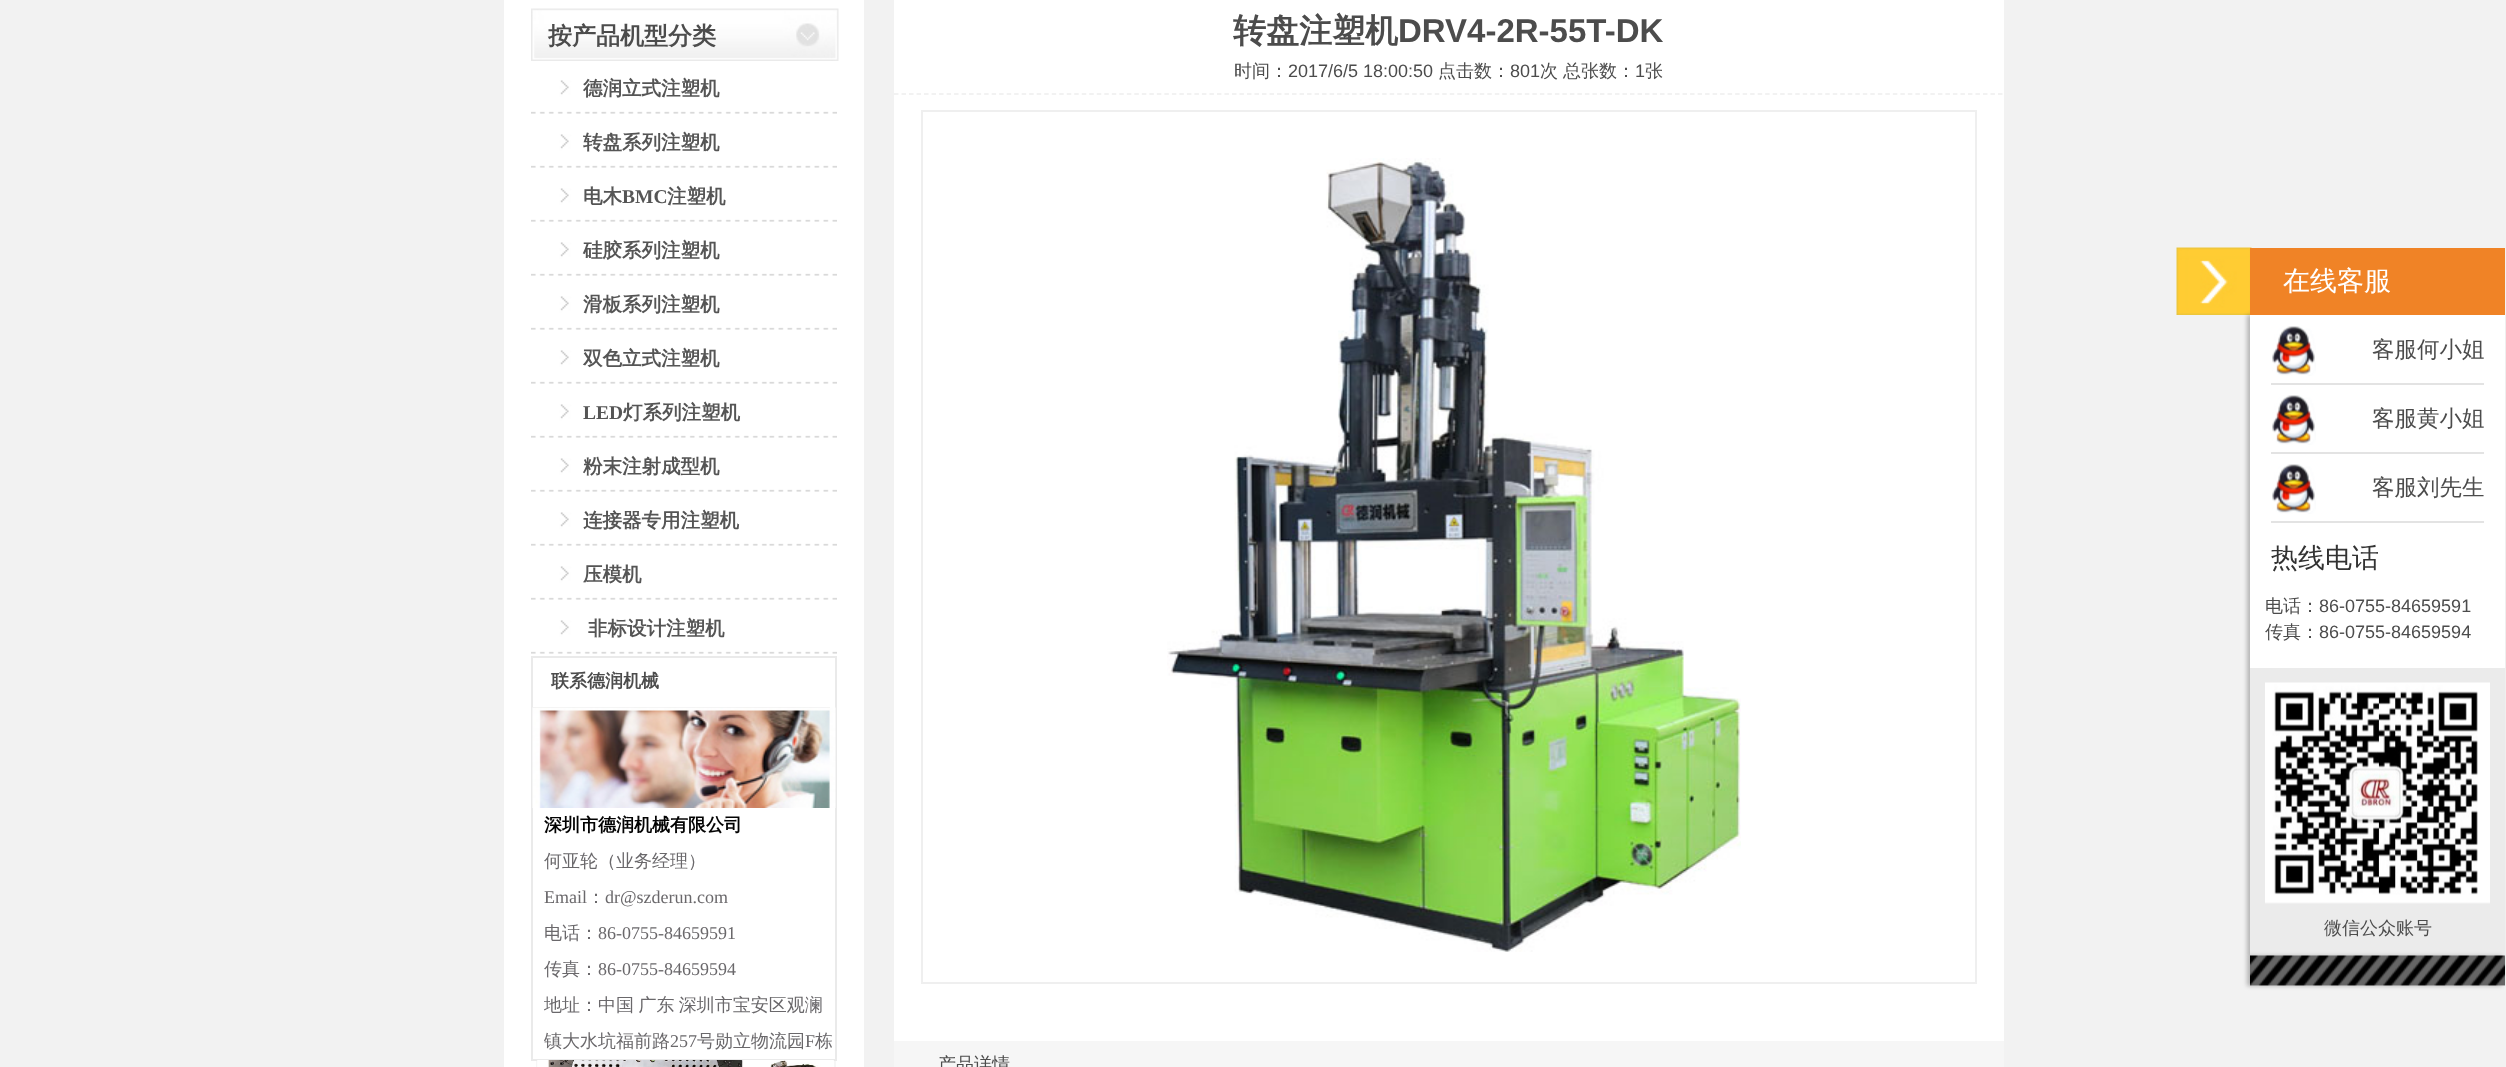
async function draw(canvas) {
  canvas.width = 2506;
  canvas.height = 1067;
  const ctx = canvas.getContext('2d');
  ctx.miterLimit = 4;
  ctx.fontKerning = 'normal';
  function label(s, x, y, font, color) {
    ctx.font = font;
    ctx.fillStyle = color;
    ctx.fillText(s, x, y);
  }
  function rect(x, y, w, h, color) {
    ctx.fillStyle = color;
    ctx.fillRect(x, y, w, h);
  }
  async function image(src, x, y, w, h) {
    const img = new Image();
    img.src = src;
    await img.decode();
    ctx.drawImage(img, x, y, w, h);
  }
  let path;

  rect(0, 0, 2506, 1067, '#f2f2f2');
  rect(504, 0, 360, 1067, '#fff');
  await image('assets/img1.png', 531, 8, 308, 53);
  label('按产品机型分类', 548, 44, 'bold 24px WenQuanYi Zen Hei', '#4c4c4c');
  await image('assets/img2.png', 531, 80, 306, 34);
  label('德润立式注塑机', 583, 95, 'bold 19.5px WenQuanYi Zen Hei', '#555');
  await image('assets/img2.png', 531, 134, 306, 34);
  label('转盘系列注塑机', 583, 149, 'bold 19.5px WenQuanYi Zen Hei', '#555');
  await image('assets/img2.png', 531, 188, 306, 34);
  label('电木', 583, 203, 'bold 19.5px WenQuanYi Zen Hei', '#555');
  label('BMC', 622, 203, 'bold 19.5px Liberation Serif', '#555');
  label('注塑机', 667, 203, 'bold 19.5px WenQuanYi Zen Hei', '#555');
  await image('assets/img2.png', 531, 242, 306, 34);
  label('硅胶系列注塑机', 583, 257, 'bold 19.5px WenQuanYi Zen Hei', '#555');
  await image('assets/img2.png', 531, 296, 306, 34);
  label('滑板系列注塑机', 583, 311, 'bold 19.5px WenQuanYi Zen Hei', '#555');
  await image('assets/img2.png', 531, 350, 306, 34);
  label('双色立式注塑机', 583, 365, 'bold 19.5px WenQuanYi Zen Hei', '#555');
  await image('assets/img2.png', 531, 404, 306, 34);
  label('LED', 583, 419, 'bold 19.5px Liberation Serif', '#555');
  label('灯系列注塑机', 623, 419, 'bold 19.5px WenQuanYi Zen Hei', '#555');
  await image('assets/img2.png', 531, 458, 306, 34);
  label('粉末注射成型机', 583, 473, 'bold 19.5px WenQuanYi Zen Hei', '#555');
  await image('assets/img2.png', 531, 512, 306, 34);
  label('连接器专用注塑机', 583, 527, 'bold 19.5px WenQuanYi Zen Hei', '#555');
  await image('assets/img2.png', 531, 566, 306, 34);
  label('压模机', 583, 581, 'bold 19.5px WenQuanYi Zen Hei', '#555');
  await image('assets/img2.png', 531, 620, 306, 34);
  label('非标设计注塑机', 588, 635, 'bold 19.5px WenQuanYi Zen Hei', '#555');
  ctx.strokeStyle = '#eaeaea';
  ctx.lineWidth = 2;
  ctx.strokeRect(532, 657, 304, 403);
  rect(533, 707, 297, 1, '#eaeaea');
  label('联系德润机械', 551, 687, 'bold 18px WenQuanYi Zen Hei', '#4c4c4c');
  await image('assets/img3.png', 532, 707, 304, 101);
  label('深圳市德润机械有限公司', 544, 831, 'bold 18px WenQuanYi Zen Hei', '#020202');
  label('何亚轮（业务经理）', 544, 867, '500 18px WenQuanYi Zen Hei', '#6a686b');
  label('Email', 544, 903, '18px Liberation Serif', '#6a686b');
  label('：', 587, 903, '500 18px WenQuanYi Zen Hei', '#6a686b');
  label('dr@szderun.com', 605, 903, '18px Liberation Serif', '#6a686b');
  label('电话：', 544, 939, '500 18px WenQuanYi Zen Hei', '#6a686b');
  label('86-0755-84659591', 598, 939, '18px Liberation Serif', '#6a686b');
  label('传真：', 544, 975, '500 18px WenQuanYi Zen Hei', '#6a686b');
  label('86-0755-84659594', 598, 975, '18px Liberation Serif', '#6a686b');
  ctx.wordSpacing = '-1px';
  label('地址：中国 广东 深圳市宝安区观澜', 544, 1011, '500 18px WenQuanYi Zen Hei', '#6a686b');
  ctx.wordSpacing = '0px';
  label('镇大水坑福前路', 544, 1047, '500 18px WenQuanYi Zen Hei', '#6a686b');
  label('257', 670, 1047, '18px Liberation Serif', '#6a686b');
  label('号勋立物流园', 697, 1047, '500 18px WenQuanYi Zen Hei', '#6a686b');
  label('F', 805, 1047, '18px Liberation Serif', '#6a686b');
  label('栋', 815, 1047, '500 18px WenQuanYi Zen Hei', '#6a686b');
  ctx.save();
  ctx.beginPath();
  ctx.rect(531, 1061, 309, 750);
  ctx.clip();
  ctx.strokeStyle = '#f6f6f6';
  ctx.strokeRect(537, 957, 298, 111);
  ctx.restore();
  await image('assets/img4.png', 537, 1060, 297, 7);
  rect(894, 0, 1110, 1041, '#fff');
  label('转盘注塑机', 1233, 42, 'bold 33px WenQuanYi Zen Hei', '#4c4c4c');
  label('DRV4-2R-55T-DK', 1398, 42, 'bold 33px Liberation Sans', '#4c4c4c');
  path = new Path2D('M894 94H2004');
  ctx.strokeStyle = '#eee';
  ctx.lineWidth = 1.5;
  ctx.setLineDash([4.5, 3.01]);
  ctx.stroke(path);
  label('时间：', 1234, 77, '500 18px WenQuanYi Zen Hei', '#4c4c4c');
  label('2017/6/5 18:00:50', 1288, 77, '18px Liberation Sans', '#4c4c4c');
  label('点击数：', 1438, 77, '500 18px WenQuanYi Zen Hei', '#4c4c4c');
  label('801', 1510, 77, '18px Liberation Sans', '#4c4c4c');
  label('次', 1540, 77, '500 18px WenQuanYi Zen Hei', '#4c4c4c');
  label('总张数：', 1563, 77, '500 18px WenQuanYi Zen Hei', '#4c4c4c');
  label('1', 1635, 77, '18px Liberation Sans', '#4c4c4c');
  label('张', 1645, 77, '500 18px WenQuanYi Zen Hei', '#4c4c4c');
  await image('assets/img5.png', 1167, 158, 574, 794);
  ctx.strokeStyle = '#efefef';
  ctx.lineWidth = 2;
  ctx.setLineDash([]);
  ctx.strokeRect(922, 111, 1054, 872);
  rect(894, 1041, 1110, 26, '#f6f6f6');
  label('产品详情', 938, 1070, '500 18px WenQuanYi Zen Hei', '#4c4c4c');
  await image('assets/img6.png', 2176, 247, 76, 68);
  rect(2250, 985, 255, 1, '#fff');
  ctx.fillStyle = '#00000040';
  ctx.filter = 'blur(2px)';
  ctx.beginPath();
  ctx.rect(2247, 315, 255, 641);
  ctx.fill();
  ctx.filter = 'none';
  rect(2250, 248, 255, 67, '#f08326');
  label('在线客服', 2283, 290, '500 27px WenQuanYi Zen Hei', '#fff');
  rect(2250, 315, 255, 353, '#fff');
  rect(2271, 383, 213, 2, '#e3e3e3');
  await image('assets/img7.png', 2272, 326, 44, 50);
  label('客服何小姐', 2372, 357, '500 22.5px WenQuanYi Zen Hei', '#4c4c4c');
  rect(2271, 452, 213, 2, '#e3e3e3');
  await image('assets/img7.png', 2272, 395, 44, 50);
  label('客服黄小姐', 2372, 426, '500 22.5px WenQuanYi Zen Hei', '#4c4c4c');
  rect(2271, 521, 213, 2, '#e3e3e3');
  await image('assets/img7.png', 2272, 464, 44, 50);
  label('客服刘先生', 2372, 495, '500 22.5px WenQuanYi Zen Hei', '#4c4c4c');
  label('热线电话', 2271, 567, '500 27px WenQuanYi Zen Hei', '#333');
  label('电话：', 2265, 612, '500 18px WenQuanYi Zen Hei', '#4c4c4c');
  label('86-0755-84659591', 2319, 612, '18px Liberation Sans', '#4c4c4c');
  label('传真：', 2265, 638, '500 18px WenQuanYi Zen Hei', '#4c4c4c');
  label('86-0755-84659594', 2319, 638, '18px Liberation Sans', '#4c4c4c');
  rect(2250, 668, 255, 288, '#ebebeb');
  await image('assets/img8.png', 2265, 682, 225, 222);
  label('微信公众账号', 2324, 934, '500 18px WenQuanYi Zen Hei', '#4c4c4c');
  ctx.fillStyle = '#00000040';
  ctx.filter = 'blur(2px)';
  ctx.beginPath();
  ctx.rect(2247, 956, 255, 30);
  ctx.fill();
  ctx.filter = 'none';
  await image('assets/img9.png', 2250, 955, 255, 31);
}

draw(document.querySelector('canvas'));
